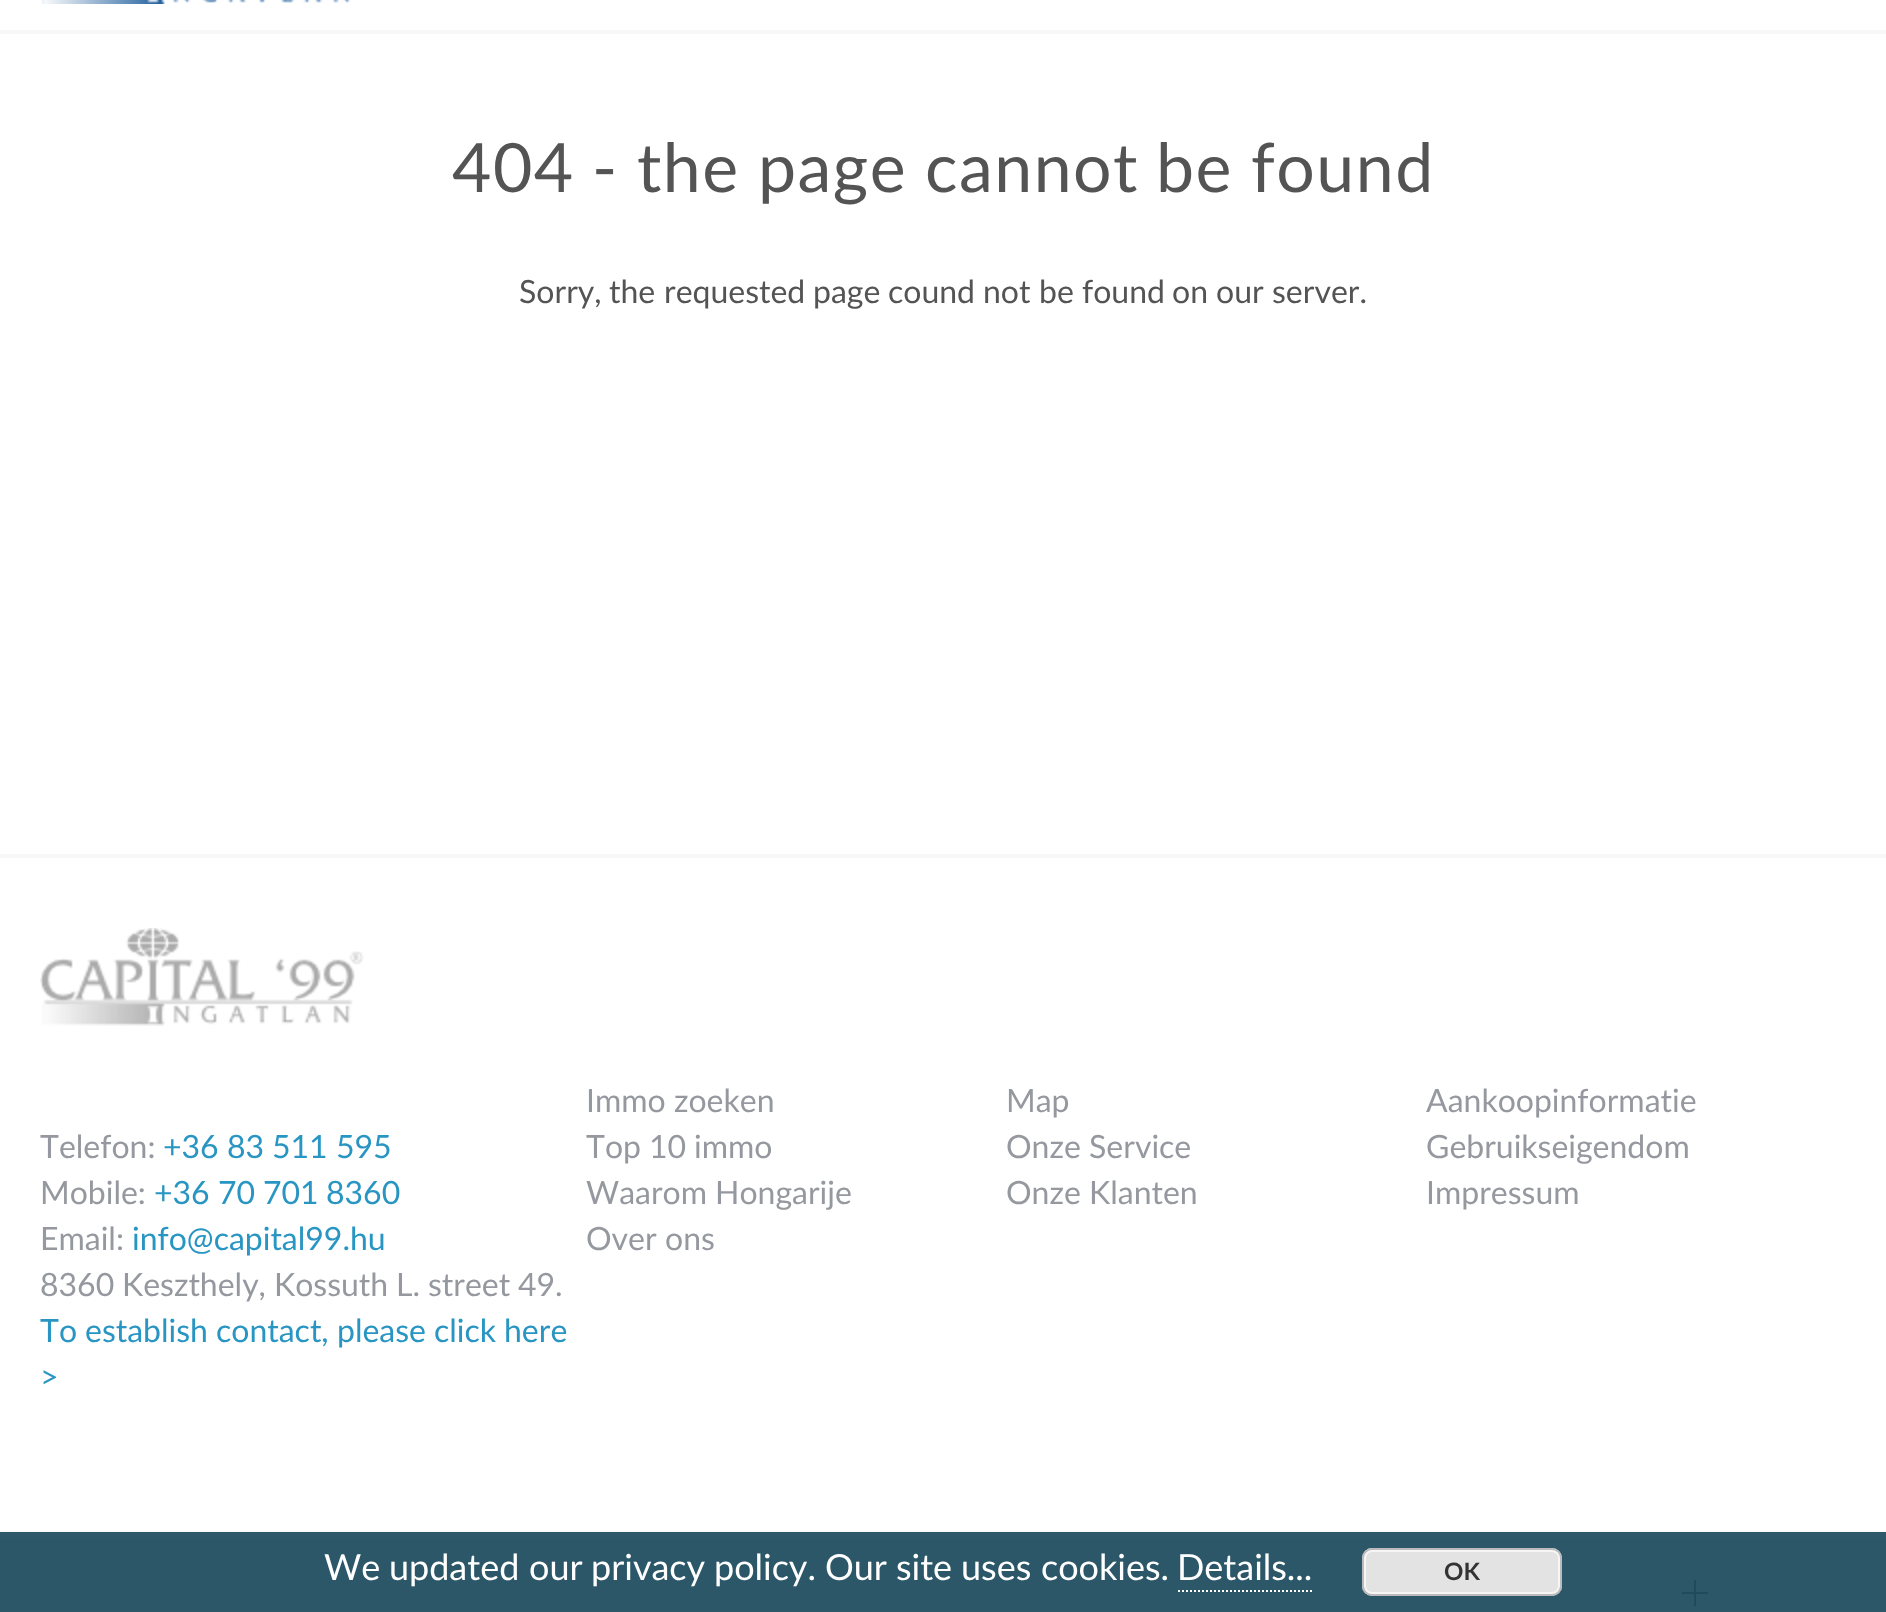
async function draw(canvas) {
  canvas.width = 1886;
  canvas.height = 1612;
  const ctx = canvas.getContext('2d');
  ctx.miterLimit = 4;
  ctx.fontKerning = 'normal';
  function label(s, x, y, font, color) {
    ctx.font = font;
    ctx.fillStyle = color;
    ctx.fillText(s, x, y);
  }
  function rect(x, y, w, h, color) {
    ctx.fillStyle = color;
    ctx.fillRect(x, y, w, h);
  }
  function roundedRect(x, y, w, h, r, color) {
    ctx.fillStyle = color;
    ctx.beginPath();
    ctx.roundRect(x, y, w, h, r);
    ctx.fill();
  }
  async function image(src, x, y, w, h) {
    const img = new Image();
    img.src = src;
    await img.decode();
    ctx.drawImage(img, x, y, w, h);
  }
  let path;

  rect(0, 0, 1886, 1612, '#fff');
  rect(0, 1532, 1886, 8, '#2e596b');
  rect(0, 30, 1886, 4, '#f6f7f9');
  await image('assets/img1.png', 42, 0, 309, 4);
  ctx.letterSpacing = '1.5px';
  label('404', 452, 192, '68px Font', '#545454');
  label('-', 592, 192, '68px Font', '#545454');
  label('the', 637, 192, '68px Font', '#545454');
  label('page', 758, 192, '68px Font', '#545454');
  label('cannot', 925, 192, '68px Font', '#545454');
  label('be', 1156, 192, '68px Font', '#545454');
  label('found', 1251, 192, '68px Font', '#545454');
  ctx.letterSpacing = '0px';
  label('Sorry,', 519, 303, '32px Font', '#545454');
  label('the', 609, 303, '32px Font', '#545454');
  label('requested', 664, 303, '32px Font', '#545454');
  label('page', 813, 303, '32px Font', '#545454');
  label('cound', 888, 303, '32px Font', '#545454');
  label('not', 983, 303, '32px Font', '#545454');
  label('be', 1039, 303, '32px Font', '#545454');
  label('found', 1082, 303, '32px Font', '#545454');
  label('on', 1172, 303, '32px Font', '#545454');
  label('our', 1216, 303, '32px Font', '#545454');
  label('server.', 1272, 303, '32px Font', '#545454');
  rect(0, 854, 1886, 4, '#f6f7f9');
  await image('assets/img2.png', 40, 928, 324, 98);
  label('Telefon:', 40, 1158, '32px Font', '#95999f');
  label('+36', 163, 1158, '32px Font', '#2995c2');
  label('83', 227, 1158, '32px Font', '#2995c2');
  label('511', 272, 1158, '32px Font', '#2995c2');
  label('595', 336, 1158, '32px Font', '#2995c2');
  label('Mobile:', 40, 1204, '32px Font', '#95999f');
  label('+36', 154, 1204, '32px Font', '#2995c2');
  label('70', 218, 1204, '32px Font', '#2995c2');
  label('701', 263, 1204, '32px Font', '#2995c2');
  label('8360', 326, 1204, '32px Font', '#2995c2');
  label('Email:', 40, 1250, '32px Font', '#95999f');
  label('info@capital99.hu', 132, 1250, '32px Font', '#2995c2');
  label('8360', 40, 1296, '32px Font', '#95999f');
  label('Keszthely,', 122, 1296, '32px Font', '#95999f');
  label('Kossuth', 274, 1296, '32px Font', '#95999f');
  label('L.', 396, 1296, '32px Font', '#95999f');
  label('street', 428, 1296, '32px Font', '#95999f');
  label('49.', 518, 1296, '32px Font', '#95999f');
  label('To', 40, 1342, '32px Font', '#2995c2');
  label('establish', 85, 1342, '32px Font', '#2995c2');
  label('contact,', 216, 1342, '32px Font', '#2995c2');
  label('please', 337, 1342, '32px Font', '#2995c2');
  label('click', 434, 1342, '32px Font', '#2995c2');
  label('here', 504, 1342, '32px Font', '#2995c2');
  label('>', 40, 1388, '32px Font', '#2995c2');
  label('Immo', 586, 1112, '32px Font', '#95999f');
  label('zoeken', 674, 1112, '32px Font', '#95999f');
  label('Top', 586, 1158, '32px Font', '#95999f');
  label('10', 649, 1158, '32px Font', '#95999f');
  label('immo', 694, 1158, '32px Font', '#95999f');
  label('Waarom', 586, 1204, '32px Font', '#95999f');
  label('Hongarije', 715, 1204, '32px Font', '#95999f');
  label('Over', 586, 1250, '32px Font', '#95999f');
  label('ons', 665, 1250, '32px Font', '#95999f');
  label('Map', 1006, 1112, '32px Font', '#95999f');
  label('Onze', 1006, 1158, '32px Font', '#95999f');
  label('Service', 1089, 1158, '32px Font', '#95999f');
  label('Onze', 1006, 1204, '32px Font', '#95999f');
  label('Klanten', 1089, 1204, '32px Font', '#95999f');
  label('Aankoopinformatie', 1426, 1112, '32px Font', '#95999f');
  label('Gebruikseigendom', 1426, 1158, '32px Font', '#95999f');
  label('Impressum', 1426, 1204, '32px Font', '#95999f');
  rect(0, 1540, 1886, 72, '#2b5769');
  rect(1694, 1580, 2, 26, '#204b5d');
  rect(1682, 1592, 26, 2, '#204b5d');
  label('We', 324, 1580, '36px Font', '#fff');
  label('updated', 389, 1580, '36px Font', '#fff');
  label('our', 529, 1580, '36px Font', '#fff');
  label('privacy', 591, 1580, '36px Font', '#fff');
  label('policy.', 714, 1580, '36px Font', '#fff');
  label('Our', 825, 1580, '36px Font', '#fff');
  label('site', 896, 1580, '36px Font', '#fff');
  label('uses', 961, 1580, '36px Font', '#fff');
  label('cookies.', 1041, 1580, '36px Font', '#fff');
  label('Details...', 1177, 1580, '36px Font', '#fff');
  path = new Path2D('M1178 1591H1312');
  ctx.strokeStyle = '#fff';
  ctx.lineWidth = 2;
  ctx.setLineDash([2, 2]);
  ctx.stroke(path);
  roundedRect(1362, 1548, 200, 48, 10, '#e3e3e3');
  ctx.beginPath();
  ctx.roundRect(1365, 1551, 194, 42, 7);
  ctx.strokeStyle = '#f6f6f6';
  ctx.setLineDash([]);
  ctx.stroke();
  ctx.beginPath();
  ctx.roundRect(1363, 1549, 198, 46, 9);
  ctx.strokeStyle = '#bbb';
  ctx.stroke();
  label('OK', 1444, 1580, 'bold 24px Font', '#333');
}

draw(document.querySelector('canvas'));
